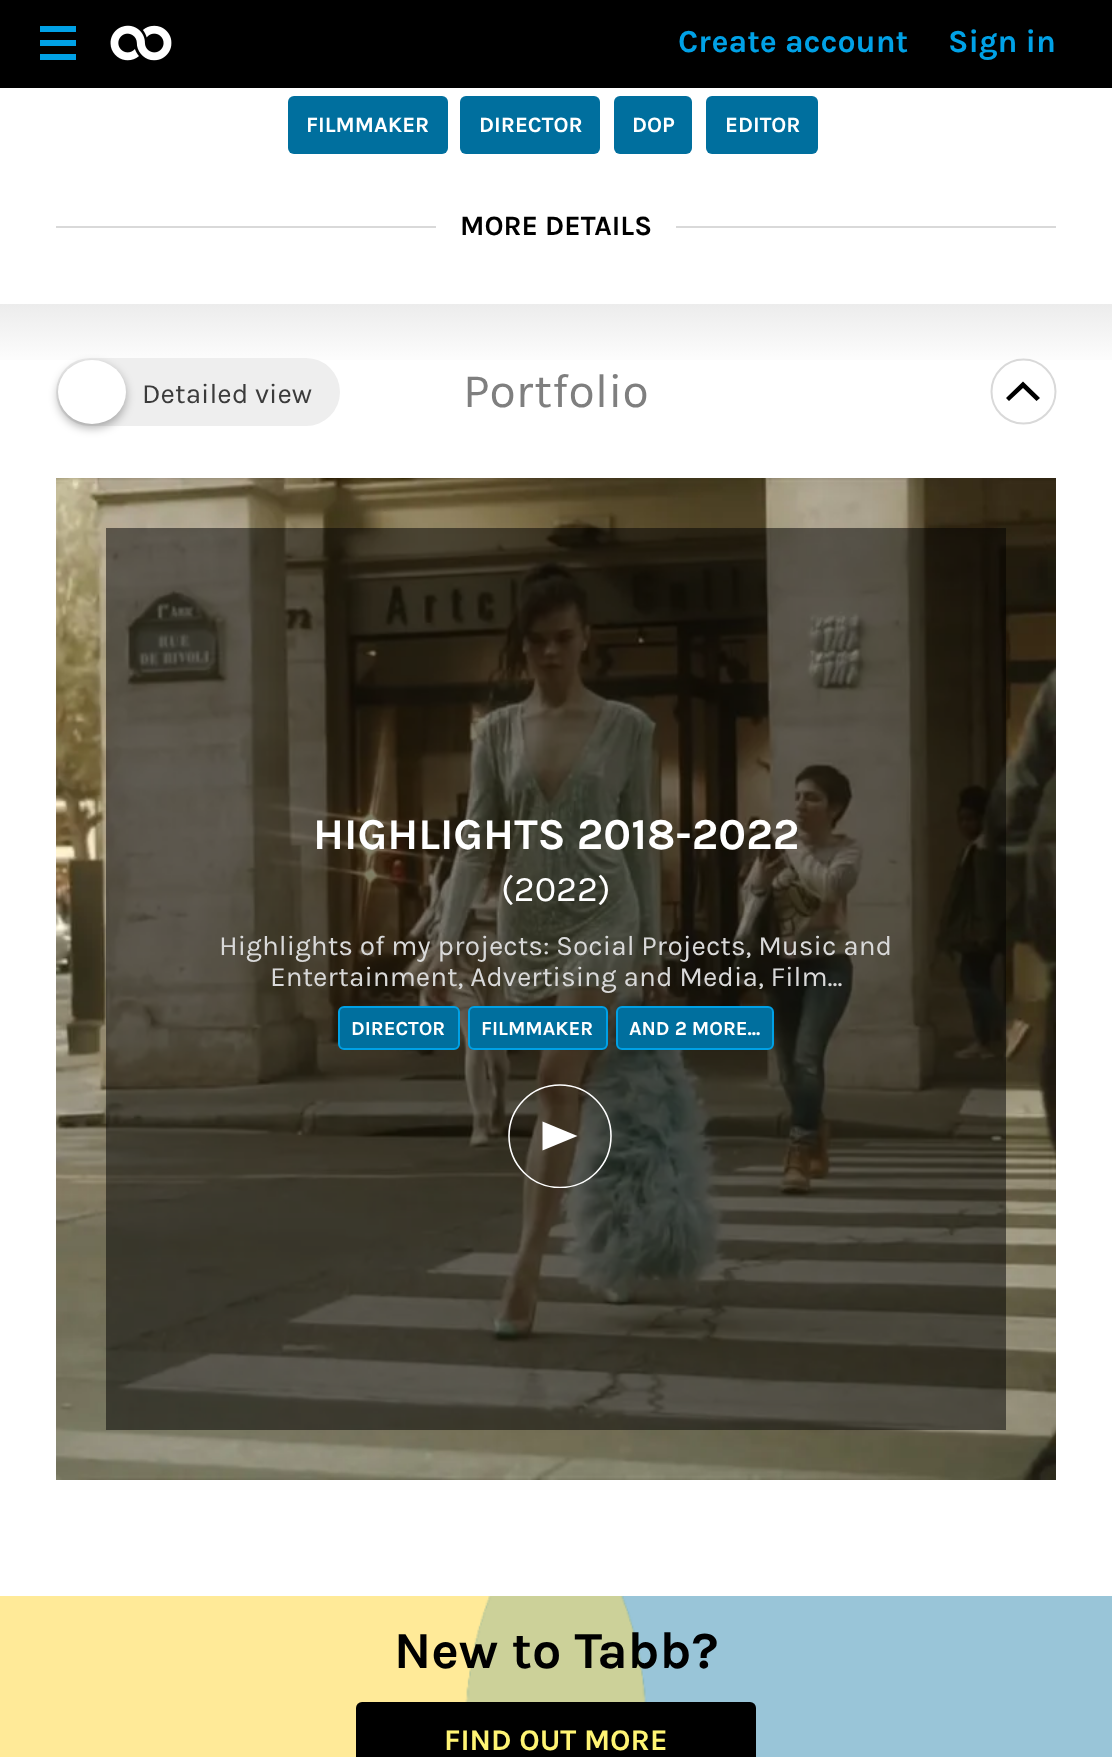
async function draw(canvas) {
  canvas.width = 1112;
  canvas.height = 1757;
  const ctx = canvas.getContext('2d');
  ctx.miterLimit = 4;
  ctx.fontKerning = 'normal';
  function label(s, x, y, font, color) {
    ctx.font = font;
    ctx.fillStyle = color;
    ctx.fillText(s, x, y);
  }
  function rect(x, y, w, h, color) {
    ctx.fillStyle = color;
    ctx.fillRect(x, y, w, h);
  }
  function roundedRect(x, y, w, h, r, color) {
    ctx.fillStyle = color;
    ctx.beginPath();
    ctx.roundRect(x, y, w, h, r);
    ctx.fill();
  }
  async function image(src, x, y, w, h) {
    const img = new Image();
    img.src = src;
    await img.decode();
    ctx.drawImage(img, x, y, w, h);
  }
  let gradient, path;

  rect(0, 0, 1112, 1757, '#fff');
  rect(0, 0, 1112, 88, '#000');
  rect(40, 40, 36, 6, '#00a1e6');
  rect(40, 26, 36, 6, '#00a1e6');
  rect(40, 54, 36, 6, '#00a1e6');
  await image('assets/img1.png', 110, 25, 62, 36);
  label('Create account', 678, 52, 'bold 32px Karla', '#00a1e6');
  label('Sign in', 948, 52, 'bold 32px Karla', '#00a1e6');
  roundedRect(288, 96, 160, 58, 6, '#006f9e');
  label('FILMMAKER', 306, 132, 'bold 22px Karla', '#fff');
  roundedRect(460, 96, 140, 58, 6, '#006f9e');
  label('DIRECTOR', 479, 132, 'bold 22px Karla', '#fff');
  roundedRect(614, 96, 78, 58, 6, '#006f9e');
  label('DOP', 632, 132, 'bold 22px Karla', '#fff');
  roundedRect(706, 96, 112, 58, 6, '#006f9e');
  label('EDITOR', 725, 132, 'bold 22px Karla', '#fff');
  rect(56, 226, 1000, 2, '#d9d9d9');
  rect(436, 226, 240, 2, '#fff');
  label('MORE DETAILS', 460, 235, 'bold 28px Karla', '#000');
  gradient = ctx.createLinearGradient(556, 304, 556, 1596);
  gradient.addColorStop(0, '#ececec');
  gradient.addColorStop(0.05, '#fff');
  ctx.fillStyle = gradient;
  ctx.fillRect(0, 304, 1112, 56);
  roundedRect(56, 358, 284, 68, 34, '#eee');
  ctx.fillStyle = '#0000004d';
  ctx.filter = 'blur(5px)';
  ctx.beginPath();
  ctx.roundRect(58, 364, 68, 64, 32);
  ctx.fill();
  ctx.filter = 'none';
  ctx.fillStyle = '#fff';
  ctx.beginPath();
  ctx.ellipse(92, 392, 34, 32, 0, 0, 2 * Math.PI);
  ctx.fill();
  label('Detailed view', 142, 403, '28px Karla', '#3b3b3b');
  label('Portfolio', 463, 407, '48px Karla', '#7f7f7f');
  path = new Path2D('M1023.5 423.5C1005.5 423.5 991.5 409.5 991.5 391.5C991.5 374 1005.5 359.5 1023.5 359.5C1041 359.5 1055.5 374 1055.5 391.5C1055.5 409.5 1041 423.5 1023.5 423.5Z');
  ctx.strokeStyle = '#d9d9d9';
  ctx.lineWidth = 2;
  ctx.stroke(path);
  ctx.fillStyle = '#000';
  path = new Path2D('M1006 398L1023 381.5L1040 398L1036.5 401L1023 388L1009 401Z');
  ctx.fill(path);
  await image('assets/img2.png', 56, 478, 1000, 1002);
  rect(106, 528, 900, 902, '#00000080');
  label('HIGHLIGHTS 2018-2022', 313, 849, 'bold 44px Karla', '#fff');
  label('(2022)', 501, 901, '36px Karla', '#fff');
  label('Highlights of my projects: Social Projects, Music and', 219, 955, '28px Karla', '#d9d9d9');
  label('Entertainment, Advertising and Media, Film...', 270, 986, '28px Karla', '#d9d9d9');
  ctx.fillStyle = '#006f9e';
  ctx.beginPath();
  ctx.roundRect(339, 1007, 120, 42, 5);
  ctx.fill();
  ctx.strokeStyle = '#00a1e6';
  ctx.stroke();
  label('DIRECTOR', 351, 1035, 'bold 20px Karla', '#fff');
  ctx.fillStyle = '#006f9e';
  ctx.beginPath();
  ctx.roundRect(469, 1007, 138, 42, 5);
  ctx.fill();
  ctx.stroke();
  label('FILMMAKER', 481, 1035, 'bold 20px Karla', '#fff');
  ctx.fillStyle = '#006f9e';
  ctx.beginPath();
  ctx.roundRect(617, 1007, 156, 42, 5);
  ctx.fill();
  ctx.stroke();
  label('AND 2 MORE...', 629, 1035, 'bold 20px Karla', '#fff');
  ctx.save();
  ctx.beginPath();
  ctx.rect(508, 1084, 104, 104);
  ctx.clip();
  path = new Path2D('M560 1085C588.5 1085 611 1108 611 1136C611 1164.5 588.5 1187.5 560 1187.5C531.5 1187.5 509 1164.5 509 1136C509 1108 531.5 1085 560 1085Z');
  ctx.strokeStyle = '#fff';
  ctx.lineWidth = 1.6;
  ctx.stroke(path);
  ctx.restore();
  path = new Path2D('M542.5 1121.5L577.5 1136L542.5 1150.5Z');
  ctx.fill(path, 'evenodd');
  await image('assets/img3.png', 0, 1596, 1112, 161);
  label('New to Tabb?', 394, 1668, 'bold 52px Karla', '#000');
  roundedRect(356, 1702, 400, 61, 6, '#000');
  label('FIND OUT MORE', 444, 1750, 'bold 30px Karla', '#fff474');
}

draw(document.querySelector('canvas'));
